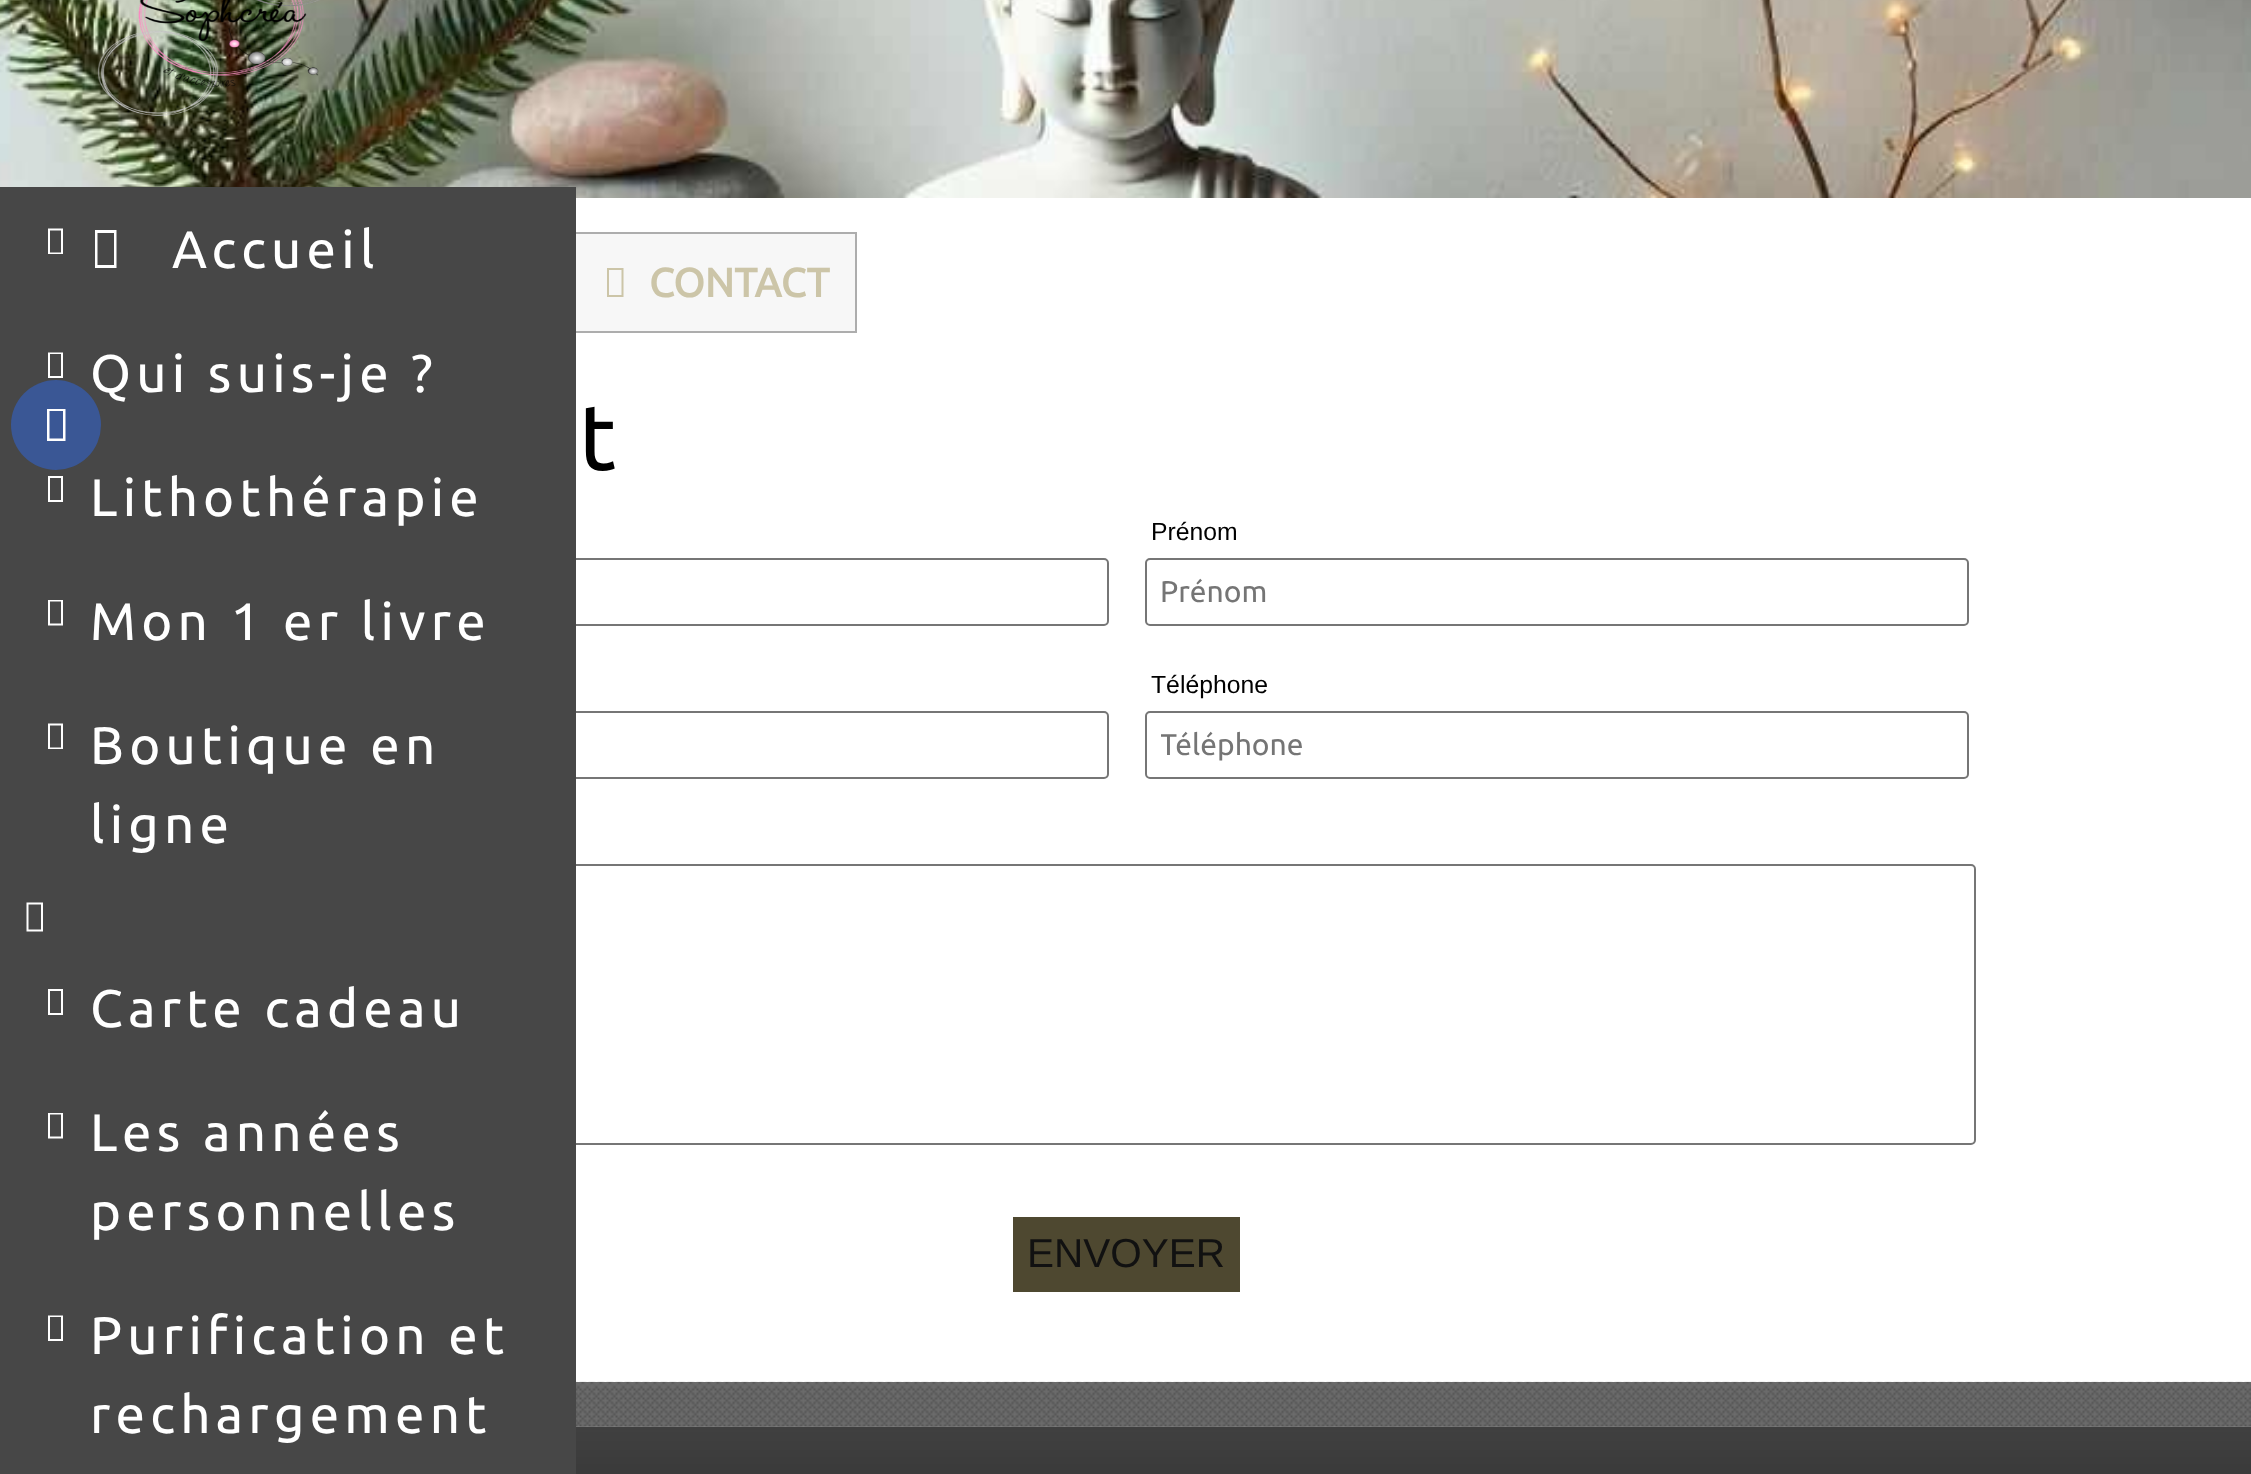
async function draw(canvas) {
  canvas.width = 2251;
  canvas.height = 1474;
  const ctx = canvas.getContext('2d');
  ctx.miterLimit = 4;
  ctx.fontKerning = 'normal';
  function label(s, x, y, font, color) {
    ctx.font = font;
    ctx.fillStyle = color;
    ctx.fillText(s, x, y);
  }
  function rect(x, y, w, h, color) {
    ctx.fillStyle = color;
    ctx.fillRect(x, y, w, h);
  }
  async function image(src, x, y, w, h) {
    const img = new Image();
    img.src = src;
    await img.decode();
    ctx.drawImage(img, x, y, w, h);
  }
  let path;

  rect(0, 0, 2251, 1474, '#fff');
  await image('assets/img1.png', 0, 0, 2251, 198);
  ctx.fillStyle = '#f7f7f7';
  ctx.beginPath();
  ctx.rect(575, 233, 281, 99);
  ctx.fill();
  ctx.strokeStyle = '#adadad';
  ctx.lineWidth = 2;
  ctx.stroke();
  ctx.beginPath();
  ctx.roundRect(287, 559, 821, 66, 4);
  ctx.strokeStyle = '#767676';
  ctx.stroke();
  ctx.beginPath();
  ctx.roundRect(287, 712, 821, 66, 4);
  ctx.stroke();
  ctx.beginPath();
  ctx.roundRect(294, 865, 1681, 279, 4);
  ctx.stroke();
  rect(0, 187, 576, 1287, '#474747');
  ctx.letterSpacing = '5.25px';
  label('Qui suis-je ?', 90, 392, '52.75px Ubuntu', '#fff');
  ctx.fillStyle = '#3a5795';
  ctx.beginPath();
  ctx.arc(56, 425, 45, 0, 2 * Math.PI);
  ctx.fill();
  ctx.fillStyle = '#fff';
  path = new Path2D('M47 441V409H65.5V441ZM49.5 438.5H63V411H49.5Z');
  ctx.fill(path);
  await image('assets/img2.png', 97, 0, 223, 116);
  path = new Path2D('M48 254V228.5H63V254ZM50 252.5H61V230.5H50Z');
  ctx.fill(path);
  path = new Path2D('M95 268V230H116.5V268ZM97.5 265H114V233H97.5Z');
  ctx.fill(path);
  label('Accueil', 172, 268, '52.75px Ubuntu', '#fff');
  path = new Path2D('M48 378V352.5H63V378ZM50 376H61V354H50Z');
  ctx.fill(path);
  path = new Path2D('M48 502V476H63V502ZM50 500H61V478H50Z');
  ctx.fill(path);
  label('Lithothérapie', 90, 516, '52.75px Ubuntu', '#fff');
  path = new Path2D('M48 625.5V600H63V625.5ZM50 623.5H61V601.5H50Z');
  ctx.fill(path);
  label('Mon 1 er livre', 90, 640, '52.75px Ubuntu', '#fff');
  path = new Path2D('M48 749V723.5H63V749ZM50 747.5H61V725.5H50Z');
  ctx.fill(path);
  label('Boutique en', 90, 764, '52.75px Ubuntu', '#fff');
  label('ligne', 90, 843, '52.75px Ubuntu', '#fff');
  path = new Path2D('M26.5 931.5V902.5H43V931.5ZM28.5 929.5H41V904.5H28.5Z');
  ctx.fill(path);
  path = new Path2D('M48 1015V989H63V1015ZM50 1013H61V991H50Z');
  ctx.fill(path);
  label('Carte cadeau', 90, 1027, '52.75px Ubuntu', '#fff');
  path = new Path2D('M48 1138.5V1113H63V1138.5ZM50 1136.5H61V1114.5H50Z');
  ctx.fill(path);
  label('Les années', 90, 1151, '52.75px Ubuntu', '#fff');
  label('personnelles', 90, 1230, '52.75px Ubuntu', '#fff');
  path = new Path2D('M48 1341V1315.5H63V1341ZM50 1339H61V1317H50Z');
  ctx.fill(path);
  label('Purification et', 90, 1354, '52.75px Ubuntu', '#fff');
  label('rechargement', 90, 1433, '52.75px Ubuntu', '#fff');
  ctx.fillStyle = '#ccc5a8';
  path = new Path2D('M607 297V268H623.5V297ZM609 295H621.5V270H609Z');
  ctx.fill(path);
  ctx.letterSpacing = '0px';
  label('CONTACT', 649, 297, 'bold 40.5px Ubuntu', '#ccc5a8');
  label('t', 579, 470, '93px Ubuntu', '#000');
  label('Prénom', 1151, 540, '24.75px Liberation Sans', '#000');
  ctx.beginPath();
  ctx.roundRect(1146, 559, 822, 66, 4);
  ctx.stroke();
  label('Prénom', 1160, 602, '30px Ubuntu', '#757575');
  label('Téléphone', 1151, 693, '24.75px Liberation Sans', '#000');
  ctx.beginPath();
  ctx.roundRect(1146, 712, 822, 66, 4);
  ctx.stroke();
  ctx.save();
  ctx.beginPath();
  ctx.rect(1161, 729, 792, 34);
  ctx.clip();
  label('Téléphone', 1160, 755, '30px Ubuntu', '#757575');
  ctx.restore();
  rect(1013, 1217, 227, 75, '#4e4830');
  label('ENVOYER', 1027, 1267, '40.5px Liberation Sans', '#111');
  rect(576, 1382, 1675, 45, '#6b6b6b');
  await image('assets/img3.png', 576, 1381, 1675, 46);
  rect(576, 1427, 1675, 47, '#111');
  await image('assets/img4.png', 576, 1426, 1675, 48);
}

draw(document.querySelector('canvas'));
